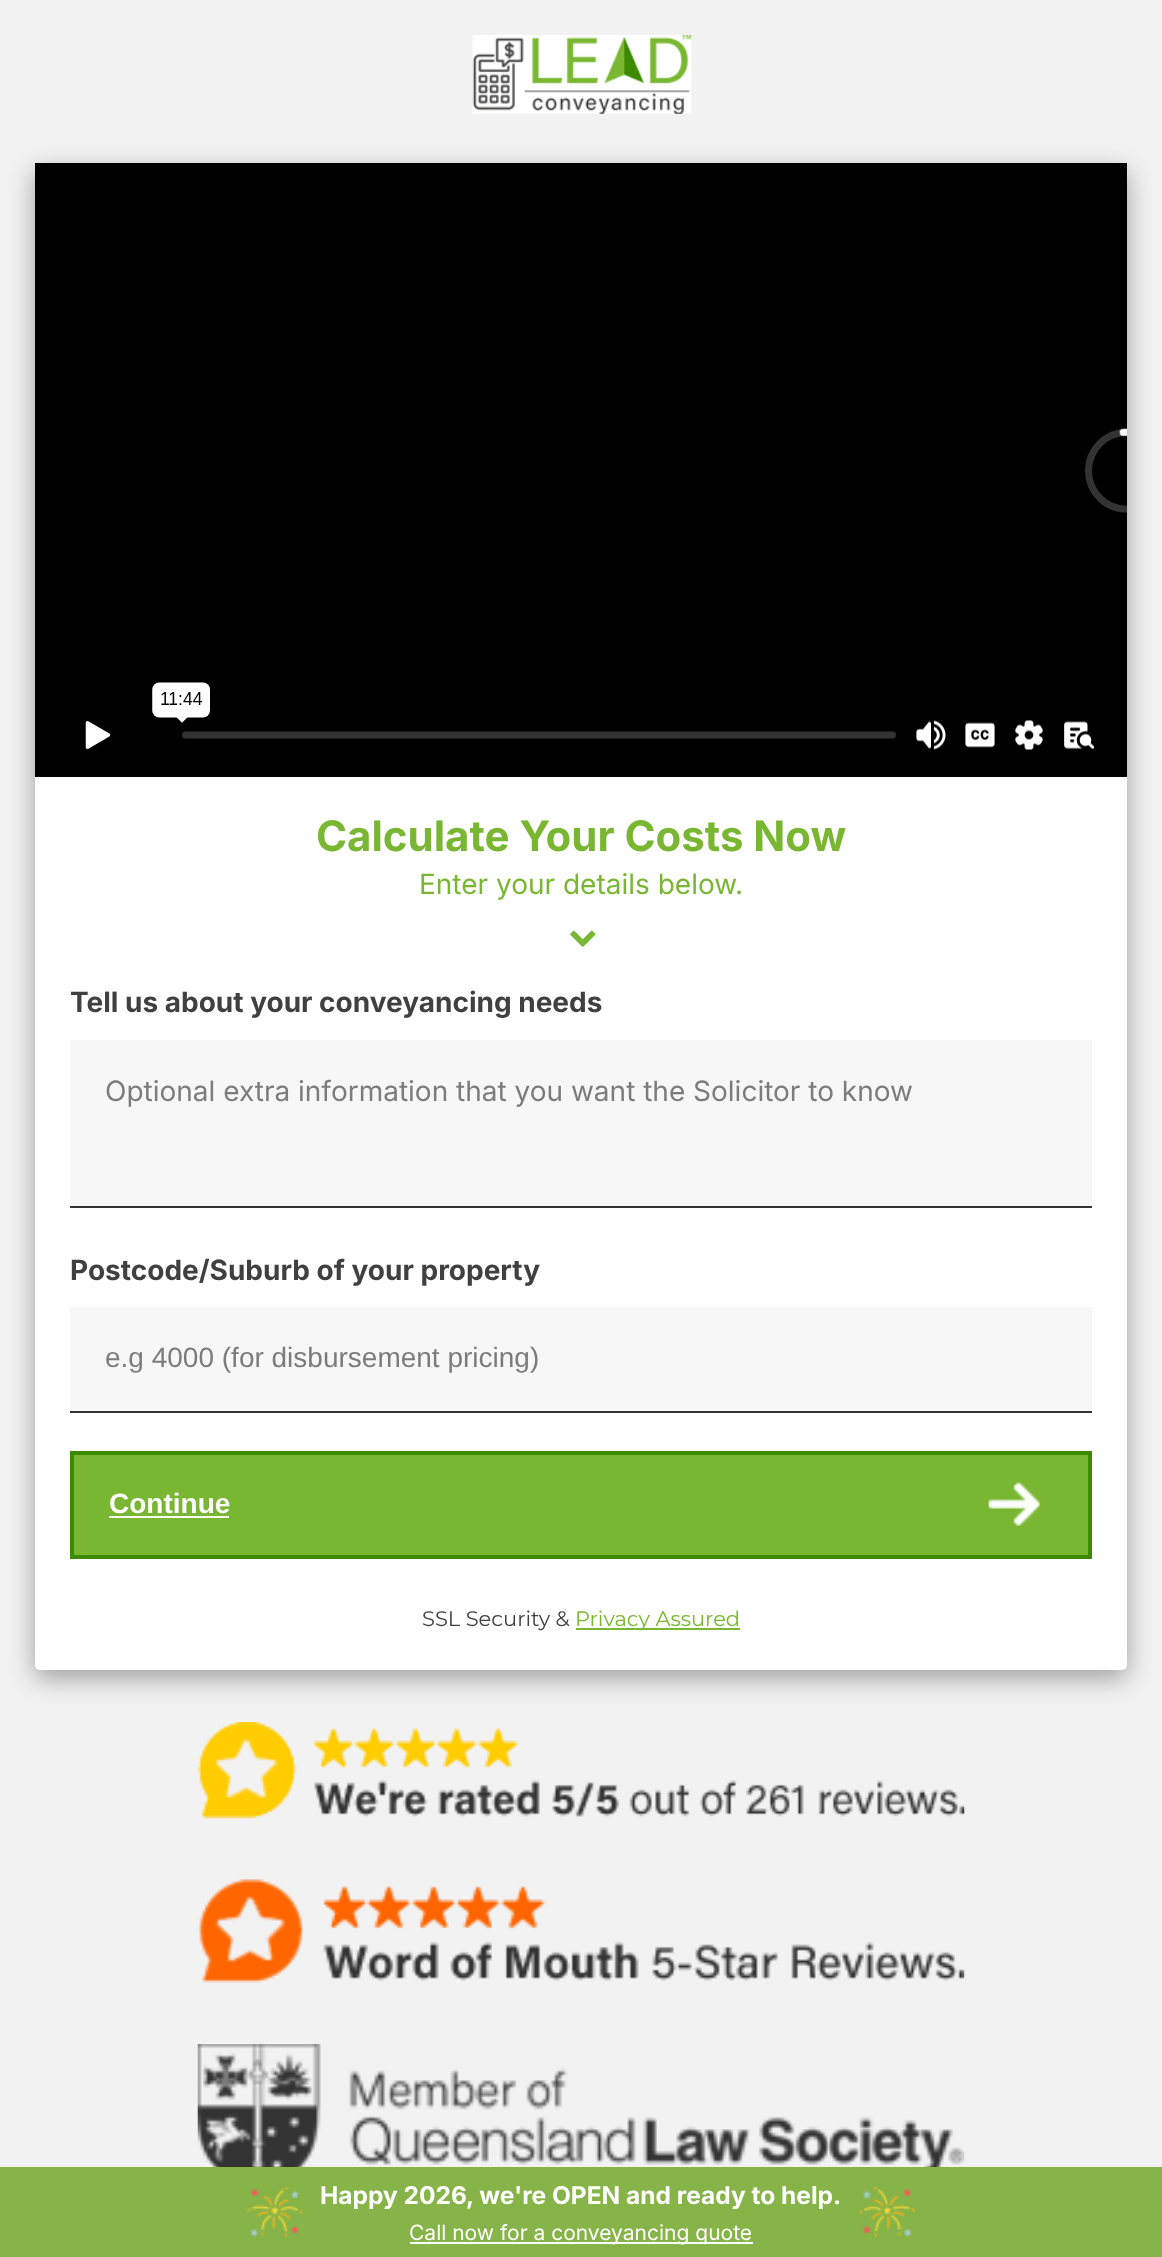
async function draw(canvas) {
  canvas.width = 1162;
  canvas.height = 2257;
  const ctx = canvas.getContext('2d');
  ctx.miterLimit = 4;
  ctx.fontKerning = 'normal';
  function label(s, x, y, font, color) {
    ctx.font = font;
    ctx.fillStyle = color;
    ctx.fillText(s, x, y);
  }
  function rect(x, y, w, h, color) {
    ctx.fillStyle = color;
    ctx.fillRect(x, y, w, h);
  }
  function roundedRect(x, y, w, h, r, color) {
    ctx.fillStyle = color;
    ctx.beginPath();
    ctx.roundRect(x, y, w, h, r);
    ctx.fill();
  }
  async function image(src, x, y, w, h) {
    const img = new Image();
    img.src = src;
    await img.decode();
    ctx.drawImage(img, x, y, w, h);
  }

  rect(0, 0, 1162, 2257, '#f2f2f2');
  await image('assets/img1.png', 472, 35, 220, 79);
  ctx.fillStyle = '#00000059';
  ctx.filter = 'blur(13px)';
  ctx.beginPath();
  ctx.roundRect(35, 172, 1092, 1506, 5);
  ctx.fill();
  ctx.filter = 'none';
  roundedRect(35, 163, 1092, 1507, 5, '#fff');
  rect(35, 163, 1092, 614, '#000');
  await image('assets/img2.png', 85, 428, 1042, 322);
  label('Calculate Your Costs Now', 316, 851, 'bold 42px Inter', '#79b732');
  label('Enter your details below.', 419, 894, '28px Inter', '#79b732');
  await image('assets/img3.png', 570, 930, 25, 17);
  label('Tell us about your conveyancing needs', 70, 1012, 'bold 28px Inter', '#404040');
  rect(70, 1040, 1022, 166, '#f7f7f7');
  rect(70, 1206, 1022, 2, '#333');
  label('Optional extra information that you want the Solicitor to know', 105, 1101, '28px Inter', '#7c7c7c');
  label('Postcode/Suburb of your property', 70, 1280, 'bold 28px Inter', '#404040');
  rect(70, 1307, 1022, 104, '#f7f7f7');
  rect(70, 1411, 1022, 2, '#333');
  label('e.g 4000 (for disbursement pricing)', 105, 1367, '28px Liberation Sans', '#7c7c7c');
  rect(74, 1455, 1014, 100, '#79b732');
  await image('assets/img4.png', 988, 1482, 52, 44);
  ctx.strokeStyle = '#3c8a00';
  ctx.lineWidth = 4;
  ctx.strokeRect(72, 1453, 1018, 104);
  label('Continue', 109, 1513, 'bold 28px Liberation Sans', '#fff');
  rect(109, 1516, 120, 2, '#fff');
  label('SSL Security &', 422, 1626, '21px Montserrat', '#404040');
  rect(576, 1628, 164, 2, '#79b732');
  label('Privacy Assured', 575, 1626, '21px Montserrat', '#79b732');
  await image('assets/img5.png', 197, 1722, 768, 97);
  await image('assets/img6.png', 198, 1879, 767, 104);
  await image('assets/img7.png', 197, 2044, 768, 123);
  rect(0, 2167, 1162, 90, '#87b448');
  await image('assets/img8.png', 246, 2186, 58, 52);
  label('Happy 2026, we\'re OPEN and ready to help.', 320, 2204, 'bold 24.5px Inter', '#fff');
  rect(410, 2242, 343, 2, '#fff');
  label('Call now for a conveyancing quote', 409, 2240, '21px Inter', '#fff');
  await image('assets/img9.png', 859, 2186, 57, 52);
}

draw(document.querySelector('canvas'));
